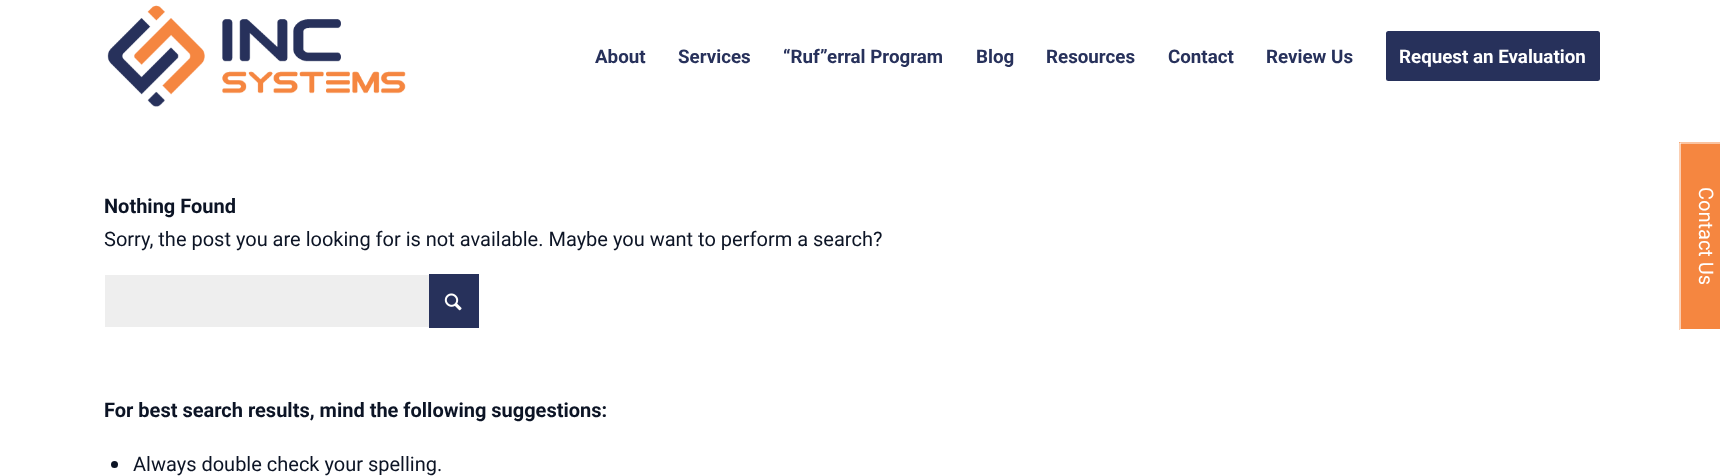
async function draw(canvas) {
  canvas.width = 1720;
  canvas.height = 476;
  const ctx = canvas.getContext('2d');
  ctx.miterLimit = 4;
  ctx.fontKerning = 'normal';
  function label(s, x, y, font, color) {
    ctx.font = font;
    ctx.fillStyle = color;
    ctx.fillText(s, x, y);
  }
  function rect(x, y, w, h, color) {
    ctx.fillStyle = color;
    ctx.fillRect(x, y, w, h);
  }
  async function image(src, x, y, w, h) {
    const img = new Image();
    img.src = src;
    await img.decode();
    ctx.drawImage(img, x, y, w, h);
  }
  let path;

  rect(0, 0, 1720, 476, '#fff');
  await image('assets/img1.png', 107, 5, 299, 102);
  label('About', 595, 63, 'bold 18.75px Roboto', '#27315b');
  label('Services', 678, 63, 'bold 18.75px Roboto', '#27315b');
  label('“Ruf”erral Program', 783, 63, 'bold 18.75px Roboto', '#27315b');
  label('Blog', 976, 63, 'bold 18.75px Roboto', '#27315b');
  label('Resources', 1046, 63, 'bold 18.75px Roboto', '#27315b');
  label('Contact', 1168, 63, 'bold 18.75px Roboto', '#27315b');
  label('Review Us', 1266, 63, 'bold 18.75px Roboto', '#27315b');
  ctx.beginPath();
  ctx.roundRect(1387.5, 32.5, 211, 47, 1);
  ctx.fill();
  ctx.strokeStyle = '#27315b';
  ctx.lineWidth = 3;
  ctx.stroke();
  label('Request an Evaluation', 1399, 63, 'bold 18.75px Roboto', '#fff');
  label('Nothing Found', 104, 213, 'bold 20px Roboto', '#0c1425');
  label('Sorry, the post you are looking for is not available. Maybe you want to perform a search?', 104, 246, '20px Roboto', '#0c1425');
  rect(105, 275, 324, 52, '#eee');
  rect(429, 274, 50, 54, '#27315b');
  await image('assets/img2.png', 444, 293, 18, 18);
  label('For best search results, mind the following suggestions:', 104, 417, 'bold 20px Roboto', '#0c1425');
  ctx.beginPath();
  ctx.arc(114.5, 464.5, 3.5, 0, 2 * Math.PI);
  ctx.fill();
  label('Always double check your spelling.', 133, 471, '20px Roboto', '#0c1425');
  rect(1679, 142, 41, 188, '#f58640');
  path = new Path2D('M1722.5 143V329.5H1680V143Z');
  ctx.strokeStyle = '#fff';
  ctx.lineWidth = 1.2;
  ctx.stroke(path);
  ctx.fillStyle = '#fff';
  ctx.save();
  ctx.translate(1699, 187);
  ctx.rotate(90 * Math.PI / 180);
  ctx.fillText('Contact Us', 0, 0);
  ctx.restore();
}

draw(document.querySelector('canvas'));
